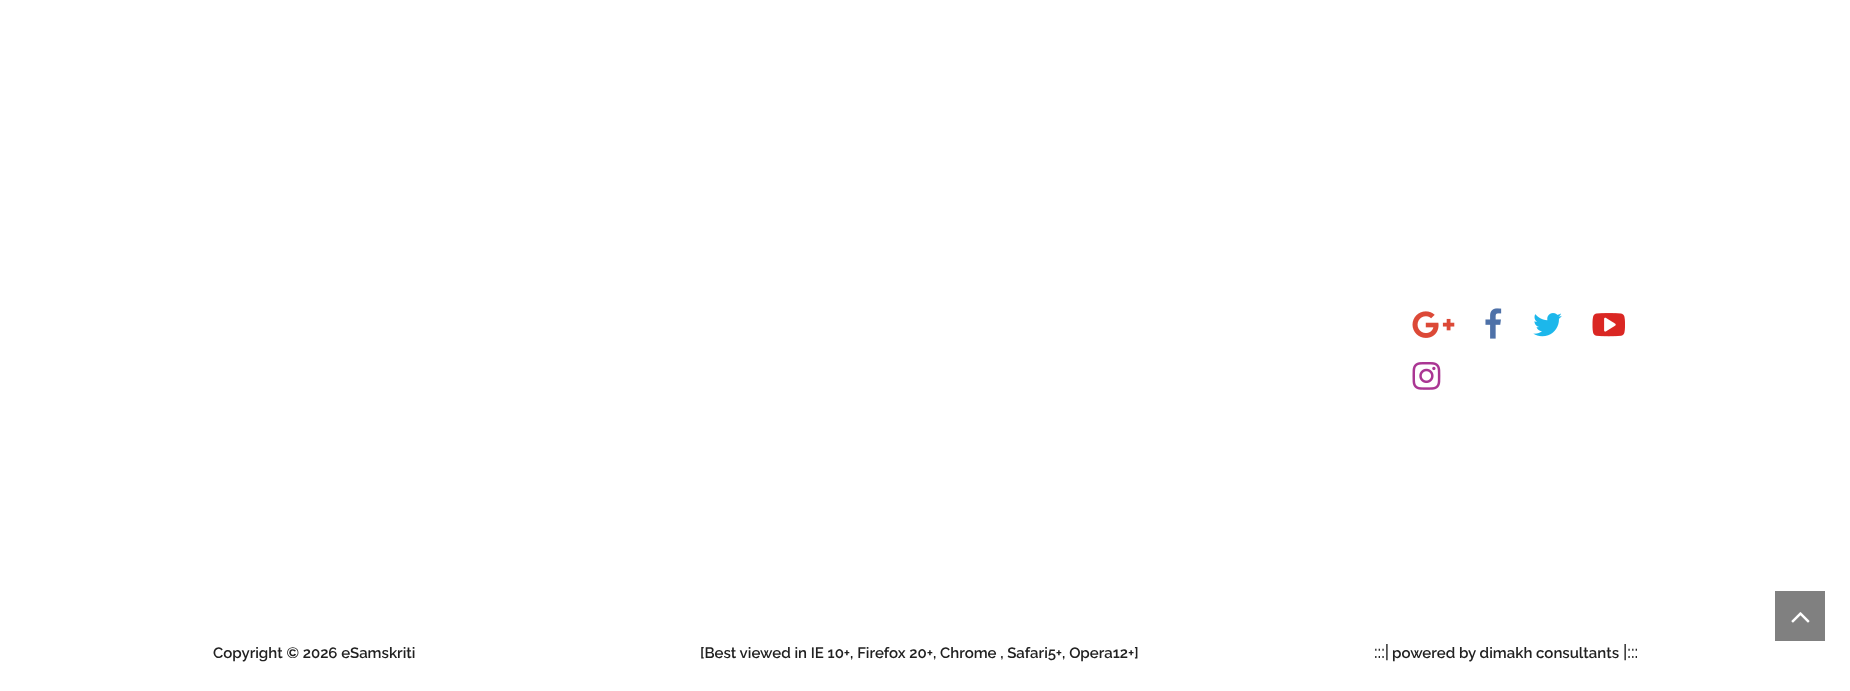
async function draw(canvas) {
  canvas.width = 1850;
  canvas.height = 691;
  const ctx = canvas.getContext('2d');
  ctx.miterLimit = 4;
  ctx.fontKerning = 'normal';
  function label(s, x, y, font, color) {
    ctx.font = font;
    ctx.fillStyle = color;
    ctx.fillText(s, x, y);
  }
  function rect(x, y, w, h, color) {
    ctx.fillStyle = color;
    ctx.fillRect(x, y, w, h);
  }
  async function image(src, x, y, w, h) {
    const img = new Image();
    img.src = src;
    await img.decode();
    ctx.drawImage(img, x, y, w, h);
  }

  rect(0, 0, 1850, 691, '#fff');
  await image('assets/img1.png', 1412, 311, 43, 27);
  await image('assets/img2.png', 1485, 308, 17, 31);
  await image('assets/img3.png', 1533, 313, 29, 24);
  await image('assets/img4.png', 1592, 313, 33, 24);
  await image('assets/img5.png', 1412, 362, 29, 28);
  rect(1775, 591, 50, 50, '#808080');
  await image('assets/img6.png', 1791, 612, 19, 11);
  label('Copyright © 2026 eSamskriti', 213, 658, '600 15px Raleway', '#212121');
  label('[Best viewed in IE 10+, Firefox 20+, Chrome , Safari5+, Opera12+]', 700, 658, '600 15px Raleway', '#212121');
  label(':::|', 1374, 658, '500 18px Raleway', '#212121');
  label('powered by dimakh consultants', 1392, 658, '600 15px Raleway', '#212121');
  label('|:::', 1623, 658, '500 18px Raleway', '#212121');
}

draw(document.querySelector('canvas'));
